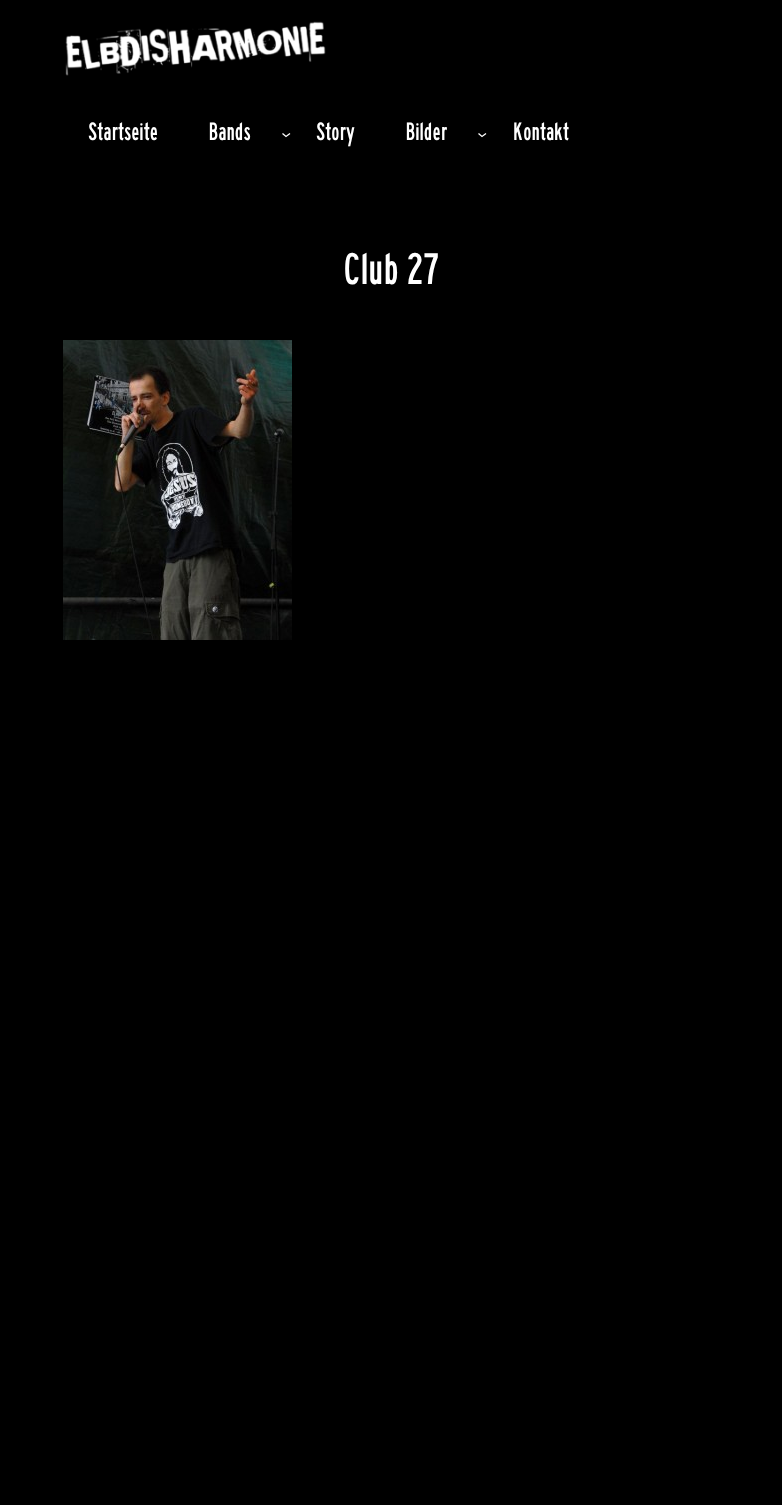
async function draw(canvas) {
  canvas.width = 782;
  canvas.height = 1505;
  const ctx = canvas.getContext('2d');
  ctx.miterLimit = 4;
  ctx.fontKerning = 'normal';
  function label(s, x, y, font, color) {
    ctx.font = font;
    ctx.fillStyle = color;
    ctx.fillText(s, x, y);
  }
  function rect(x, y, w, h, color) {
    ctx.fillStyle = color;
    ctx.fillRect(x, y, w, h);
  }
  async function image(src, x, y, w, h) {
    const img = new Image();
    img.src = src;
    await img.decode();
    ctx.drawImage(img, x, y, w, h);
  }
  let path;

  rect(0, 0, 782, 1505, '#000');
  await image('assets/img1.png', 65, 21, 261, 55);
  label('Startseite', 88, 140, '26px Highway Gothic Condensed', '#fff');
  label('Bands', 209, 140, '26px Highway Gothic Condensed', '#fff');
  path = new Path2D('M282.5 133.5L286 136.5L290 133.5');
  ctx.strokeStyle = '#fff';
  ctx.lineWidth = 1.3;
  ctx.stroke(path);
  label('Story', 316, 140, '26px Highway Gothic Condensed', '#fff');
  label('Bilder', 406, 140, '26px Highway Gothic Condensed', '#fff');
  path = new Path2D('M478.5 133.5L482 136.5L486 133.5');
  ctx.stroke(path);
  label('Kontakt', 513, 140, '26px Highway Gothic Condensed', '#fff');
  label('Club 27', 343, 284, '46px Highway Gothic Condensed', '#fff');
  await image('assets/img2.png', 63, 340, 229, 300);
}

draw(document.querySelector('canvas'));
